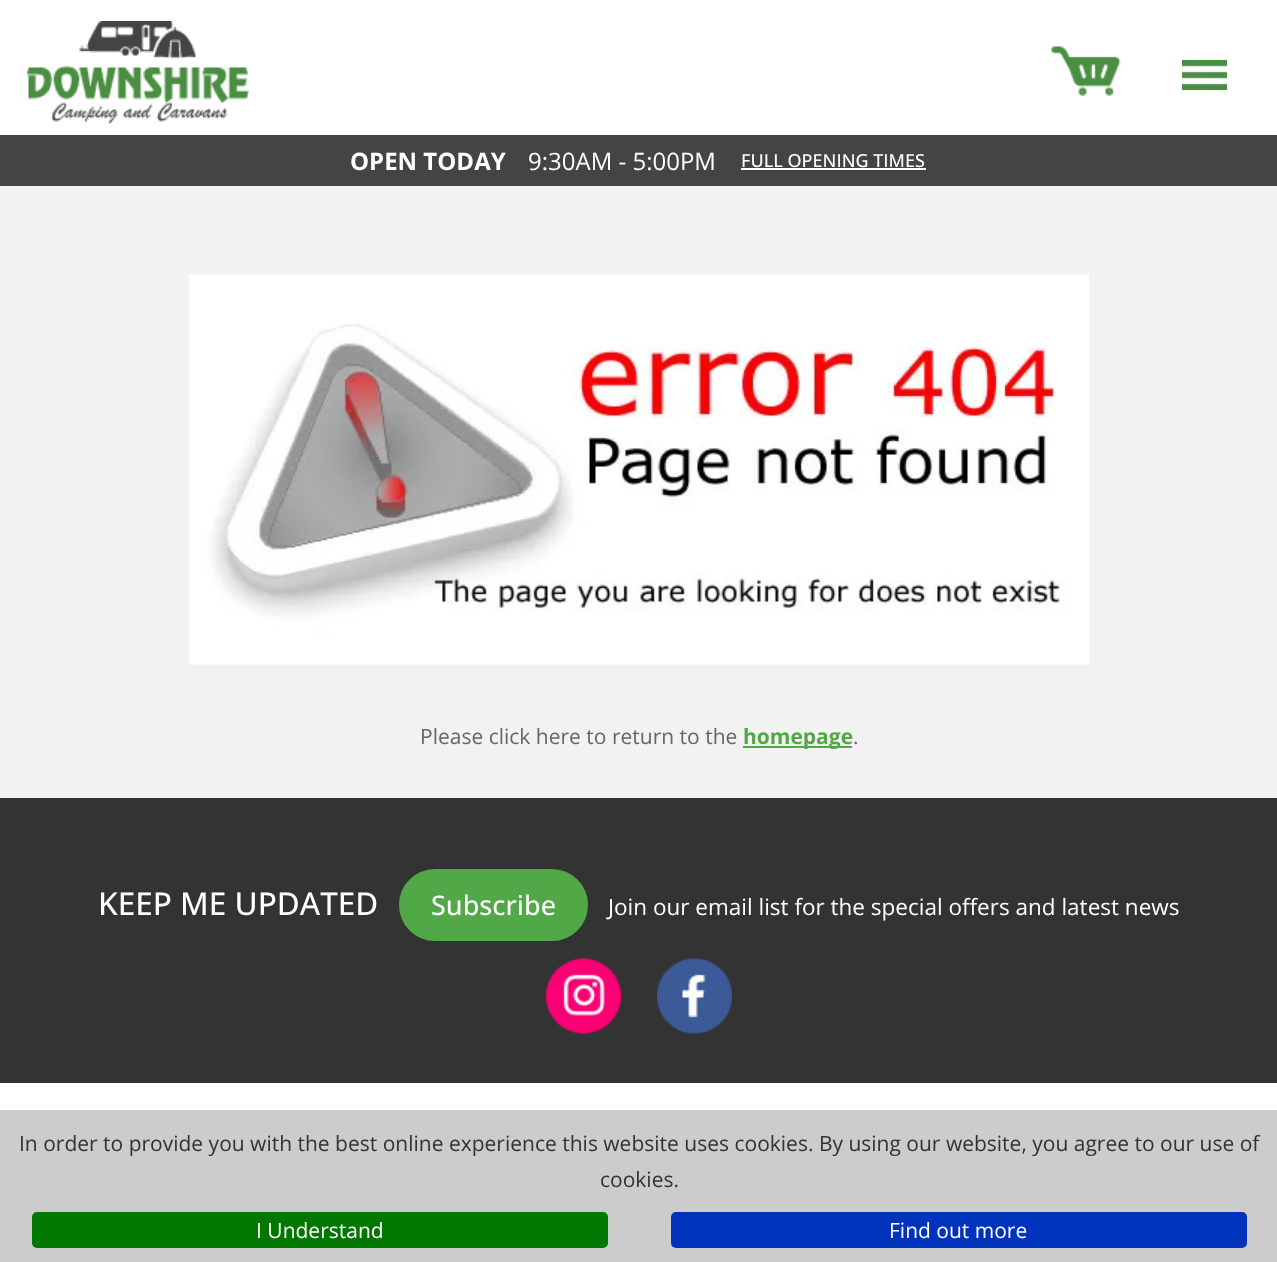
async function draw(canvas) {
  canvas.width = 1277;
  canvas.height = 1262;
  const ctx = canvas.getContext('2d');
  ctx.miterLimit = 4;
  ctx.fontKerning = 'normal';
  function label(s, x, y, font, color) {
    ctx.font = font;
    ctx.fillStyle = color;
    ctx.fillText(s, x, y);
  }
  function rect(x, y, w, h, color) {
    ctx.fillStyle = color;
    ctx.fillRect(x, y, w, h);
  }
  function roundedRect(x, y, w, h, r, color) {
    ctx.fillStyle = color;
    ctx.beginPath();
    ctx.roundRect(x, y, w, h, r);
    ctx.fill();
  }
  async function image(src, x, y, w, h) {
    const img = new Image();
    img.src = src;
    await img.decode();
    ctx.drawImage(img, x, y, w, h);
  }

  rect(0, 0, 1277, 1262, '#f2f2f2');
  rect(0, 0, 1277, 135, '#fff');
  await image('assets/img1.png', 27, 21, 222, 104);
  await image('assets/img2.png', 1051, 46, 70, 50);
  await image('assets/img3.png', 1182, 60, 45, 30);
  rect(0, 135, 1277, 51, '#444');
  label('OPEN TODAY', 350, 170, 'bold 24px Open Sans', '#fff');
  label('9:30AM - 5:00PM', 528, 170, '24px Open Sans', '#fff');
  label('FULL OPENING TIMES', 741, 167, '500 18px Open Sans', '#fff');
  rect(741, 168, 185, 2, '#fff');
  await image('assets/img4.png', 189, 274, 900, 391);
  label('Please click here to return to the', 420, 744, '21px Open Sans', '#666');
  rect(743, 746, 109, 2, '#51a847');
  label('homepage', 743, 744, 'bold 21px Open Sans', '#51a847');
  label('.', 853, 744, '21px Open Sans', '#666');
  rect(0, 798, 1277, 285, '#333');
  label('KEEP ME UPDATED', 98, 915, '500 31.5px Open Sans', '#fff');
  ctx.fillStyle = '#51a847';
  ctx.beginPath();
  ctx.roundRect(400, 870, 187, 70, 35);
  ctx.fill();
  ctx.strokeStyle = '#51a847';
  ctx.lineWidth = 2;
  ctx.stroke();
  label('Subscribe', 431, 915, '500 27px Open Sans', '#fff');
  label('Join our email list for the special offers and latest news', 608, 915, '22.5px Open Sans', '#fff');
  await image('assets/img5.png', 546, 958, 75, 76);
  await image('assets/img6.png', 657, 958, 75, 76);
  rect(0, 1083, 1277, 27, '#fff');
  rect(0, 1110, 1277, 152, '#ccc');
  label('In order to provide you with the best online experience this website uses cookies. By using our website, you agree to our use of', 19, 1151, '21px Open Sans', '#333');
  label('cookies.', 600, 1187, '21px Open Sans', '#333');
  roundedRect(32, 1212, 576, 36, 5, '#070');
  label('I Understand', 256, 1238, '21px Open Sans', '#fff');
  roundedRect(671, 1212, 576, 36, 5, '#03b');
  label('Find out more', 889, 1238, '21px Open Sans', '#fff');
}

draw(document.querySelector('canvas'));
